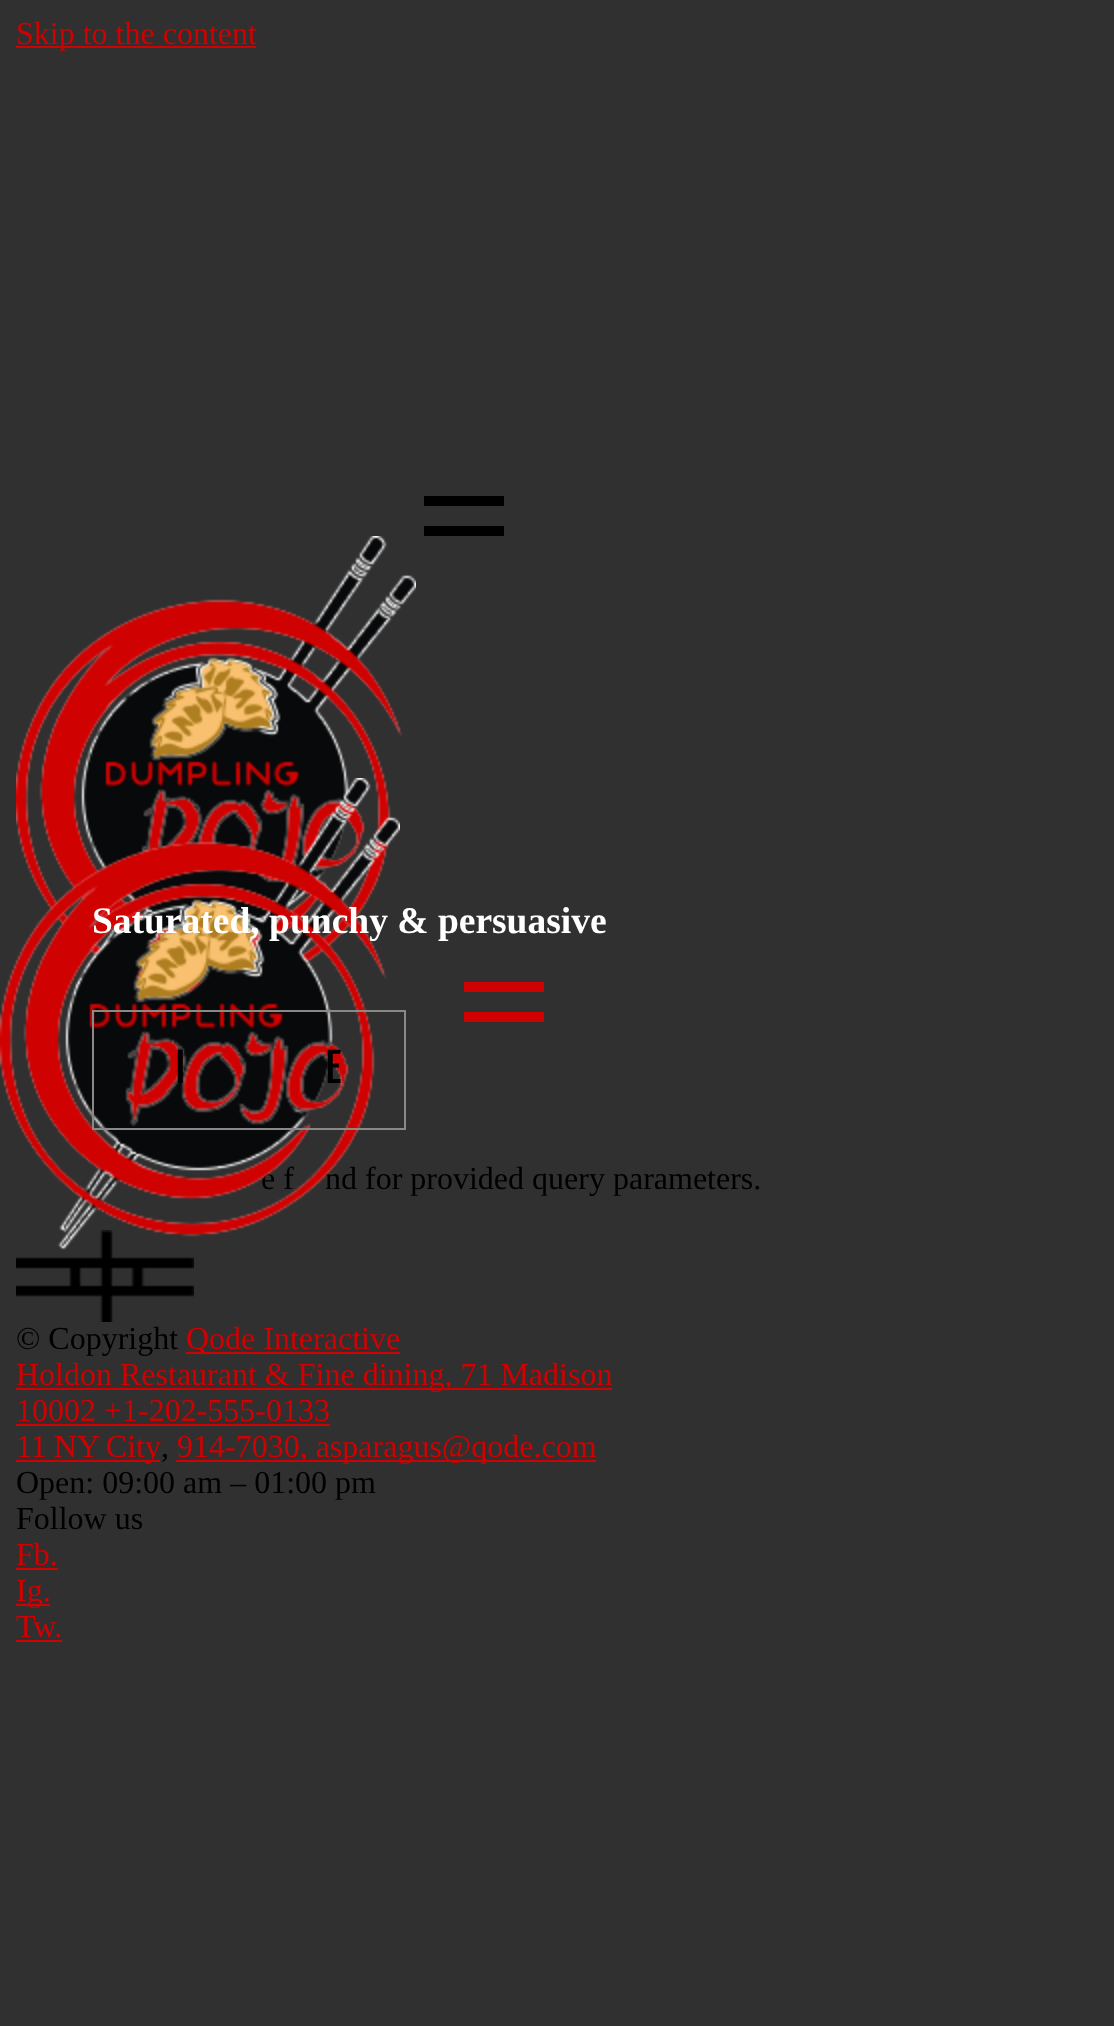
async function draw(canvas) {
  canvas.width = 1114;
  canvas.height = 2026;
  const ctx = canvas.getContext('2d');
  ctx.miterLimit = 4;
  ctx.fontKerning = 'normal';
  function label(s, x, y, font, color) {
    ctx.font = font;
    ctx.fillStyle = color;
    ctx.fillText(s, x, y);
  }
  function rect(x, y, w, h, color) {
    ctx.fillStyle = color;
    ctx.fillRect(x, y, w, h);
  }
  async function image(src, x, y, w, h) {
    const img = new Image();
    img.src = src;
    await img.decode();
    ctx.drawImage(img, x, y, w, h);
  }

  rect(0, 0, 1114, 2026, '#303030');
  rect(16, 46, 240, 2, '#cf0101');
  label('Skip to the content', 16, 44, '32px Liberation Serif', '#cf0101');
  rect(424, 496, 80, 10, '#000');
  rect(424, 526, 80, 10, '#000');
  await image('assets/img2.png', 16, 536, 400, 457);
  label('e f', 261, 1189, '32px Liberation Serif', '#000');
  label('nd for provided query parameters.', 325, 1189, '32px Liberation Serif', '#000');
  await image('assets/img3.png', 16, 1230, 178, 92);
  await image('assets/img1.png', 0, 778, 400, 472);
  rect(464, 982, 80, 10, '#cf0101');
  rect(464, 1012, 80, 10, '#cf0101');
  label('Saturated, punchy & persuasive', 92, 933, 'bold 37.5px Liberation Serif', '#fff');
  ctx.strokeStyle = '#8a8987';
  ctx.lineWidth = 2;
  ctx.strokeRect(93, 1011, 312, 118);
  ctx.letterSpacing = '2px';
  label('I', 175, 1083, '40px Fjalla One', '#000');
  label('E', 325, 1083, '40px Fjalla One', '#000');
  ctx.letterSpacing = '0px';
  label('© Copyright', 16, 1349, '32px Liberation Serif', '#000');
  rect(186, 1352, 214, 2, '#cf0101');
  label('Qode Interactive', 186, 1349, '32px Liberation Serif', '#cf0101');
  rect(16, 1388, 596, 2, '#cf0101');
  label('Holdon Restaurant & Fine dining, 71 Madison', 16, 1385, '32px Liberation Serif', '#cf0101');
  label('10002 +1-202-555-0133', 16, 1421, '32px Liberation Serif', '#cf0101');
  rect(16, 1424, 314, 2, '#cf0101');
  rect(16, 1460, 144, 2, '#cf0101');
  ctx.wordSpacing = '-1px';
  label('11 NY City', 16, 1457, '32px Liberation Serif', '#cf0101');
  ctx.wordSpacing = '0px';
  label(',', 161, 1457, '32px Liberation Serif', '#000');
  rect(176, 1460, 420, 2, '#cf0101');
  label('914-7030, asparagus@qode.com', 177, 1457, '32px Liberation Serif', '#cf0101');
  label('Open: 09:00 am – 01:00 pm', 16, 1493, '32px Liberation Serif', '#000');
  label('Follow us', 16, 1529, '32px Liberation Serif', '#000');
  label('Fb.', 16, 1565, '32px Liberation Serif', '#cf0101');
  rect(16, 1568, 42, 2, '#cf0101');
  rect(16, 1604, 34, 2, '#cf0101');
  label('Ig.', 16, 1601, '32px Liberation Serif', '#cf0101');
  label('Tw.', 16, 1637, '32px Liberation Serif', '#cf0101');
  rect(16, 1640, 46, 2, '#cf0101');
}

draw(document.querySelector('canvas'));
